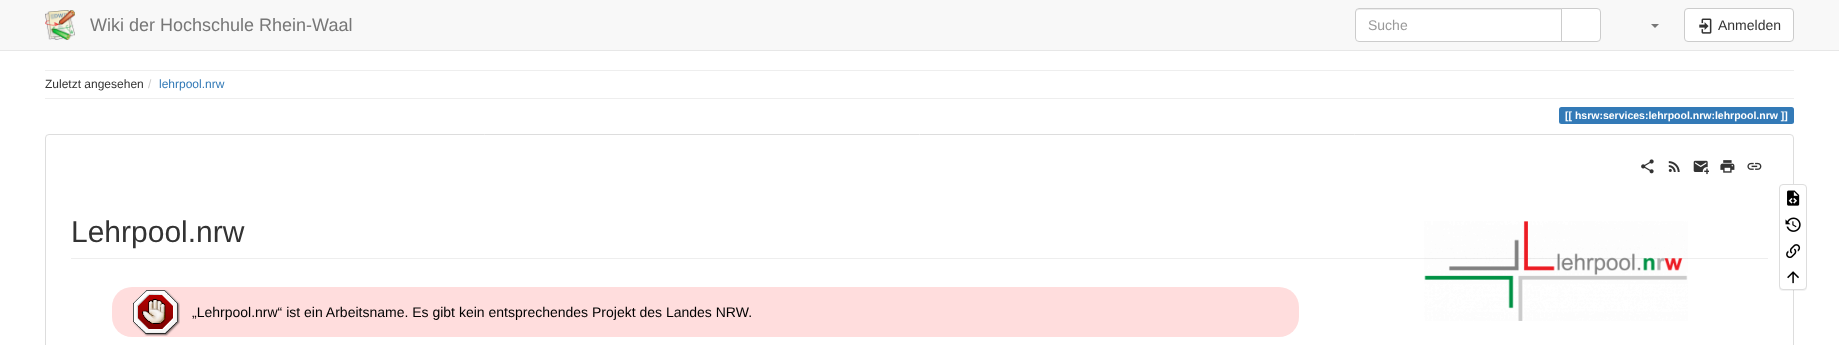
async function draw(canvas) {
  canvas.width = 1839;
  canvas.height = 345;
  const ctx = canvas.getContext('2d');
  ctx.miterLimit = 4;
  ctx.fontKerning = 'normal';
  function label(s, x, y, font, color) {
    ctx.font = font;
    ctx.fillStyle = color;
    ctx.fillText(s, x, y);
  }
  function rect(x, y, w, h, color) {
    ctx.fillStyle = color;
    ctx.fillRect(x, y, w, h);
  }
  function roundedRect(x, y, w, h, r, color) {
    ctx.fillStyle = color;
    ctx.beginPath();
    ctx.roundRect(x, y, w, h, r);
    ctx.fill();
  }
  async function image(src, x, y, w, h) {
    const img = new Image();
    img.src = src;
    await img.decode();
    ctx.drawImage(img, x, y, w, h);
  }
  let path;

  rect(0, 0, 1839, 345, '#fff');
  rect(0, 0, 1839, 50, '#f8f8f8');
  rect(0, 50, 1839, 1, '#e7e7e7');
  await image('assets/img1.png', 45, 10, 30, 30);
  label('Wiki der Hochschule Rhein-Waal', 90, 31, '18px Liberation Sans', '#777');
  ctx.fillStyle = '#fff';
  ctx.beginPath();
  ctx.roundRect(1355, 8, 207, 34, [4, 0, 0, 4]);
  ctx.fill();
  ctx.fillStyle = '#ececec';
  path = new Path2D('M1359 10H1561V9H1358C1356 10 1356 11 1356 13C1356 11 1357 10 1359 10Z');
  ctx.fill(path);
  ctx.beginPath();
  ctx.roundRect(1355.5, 8.5, 206, 33, [3.5, 0, 0, 3.5]);
  ctx.strokeStyle = '#ccc';
  ctx.stroke();
  label('Suche', 1368, 30, '14px Liberation Sans', '#999');
  ctx.fillStyle = '#fff';
  ctx.beginPath();
  ctx.roundRect(1561.5, 8.5, 39, 33, [0, 3.5, 3.5, 0]);
  ctx.fill();
  ctx.stroke();
  ctx.fillStyle = '#777';
  path = new Path2D('M1651 24H1659L1655 28Z');
  ctx.fill(path);
  ctx.fillStyle = '#fff';
  ctx.beginPath();
  ctx.roundRect(1684.5, 8.5, 109, 33, 3.5);
  ctx.fill();
  ctx.stroke();
  await image('assets/img2.png', 1699, 18, 13, 16);
  label('Anmelden', 1718, 30, '14px Liberation Sans', '#333');
  rect(45, 70, 1749, 1, '#eee');
  label('Zuletzt angesehen', 45, 88, '12px Liberation Sans', '#333');
  label('/', 148, 88, '12px Liberation Sans', '#ccc');
  label('lehrpool.nrw', 159, 88, '12px Liberation Sans', '#337ab7');
  rect(45, 98, 1749, 1, '#eee');
  ctx.fillStyle = '#337ab7';
  ctx.beginPath();
  ctx.roundRect(1559, 107, 16, 17, [2.5, 0, 0, 2.5]);
  ctx.fill();
  rect(1575, 107, 203, 17, '#337ab7');
  ctx.beginPath();
  ctx.roundRect(1778, 107, 16, 17, [0, 2.5, 2.5, 0]);
  ctx.fill();
  label('[[ hsrw:services:lehrpool.nrw:lehrpool.nrw ]]', 1565, 119, 'bold 10.5px Liberation Sans', '#fff');
  ctx.beginPath();
  ctx.roundRect(45.5, 134.5, 1748, 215, 3.5);
  ctx.strokeStyle = '#ddd';
  ctx.stroke();
  await image('assets/img3.png', 1641, 159, 13, 15);
  await image('assets/img4.png', 1668, 161, 12, 11);
  await image('assets/img5.png', 1693, 160, 16, 15);
  await image('assets/img6.png', 1720, 160, 15, 13);
  await image('assets/img7.png', 1747, 162, 15, 8);
  rect(71, 258, 1697, 1, '#eee');
  label('Lehrpool.nrw', 71, 242, '30px Liberation Sans', '#333');
  roundedRect(112, 287, 1187, 50, 20, '#fdd');
  await image('assets/img8.png', 133, 290, 47, 46);
  label('„Lehrpool.nrw“ ist ein Arbeitsname. Es gibt kein entsprechendes Projekt des Landes NRW.', 192, 317, '14px Liberation Sans', '#000');
  await image('assets/img9.png', 1424, 221, 264, 100);
  ctx.fillStyle = '#0000000d';
  ctx.filter = 'blur(0.5px)';
  ctx.beginPath();
  ctx.roundRect(1779, 185, 28, 106, 4);
  ctx.fill();
  ctx.filter = 'none';
  ctx.fillStyle = '#fff';
  ctx.beginPath();
  ctx.roundRect(1779.5, 184.5, 27, 105, 3.5);
  ctx.fill();
  ctx.stroke();
  await image('assets/img10.png', 1787, 190, 13, 16);
  await image('assets/img11.png', 1785, 217, 16, 15);
  await image('assets/img12.png', 1786, 244, 15, 15);
  await image('assets/img13.png', 1787, 271, 12, 13);
}

draw(document.querySelector('canvas'));
